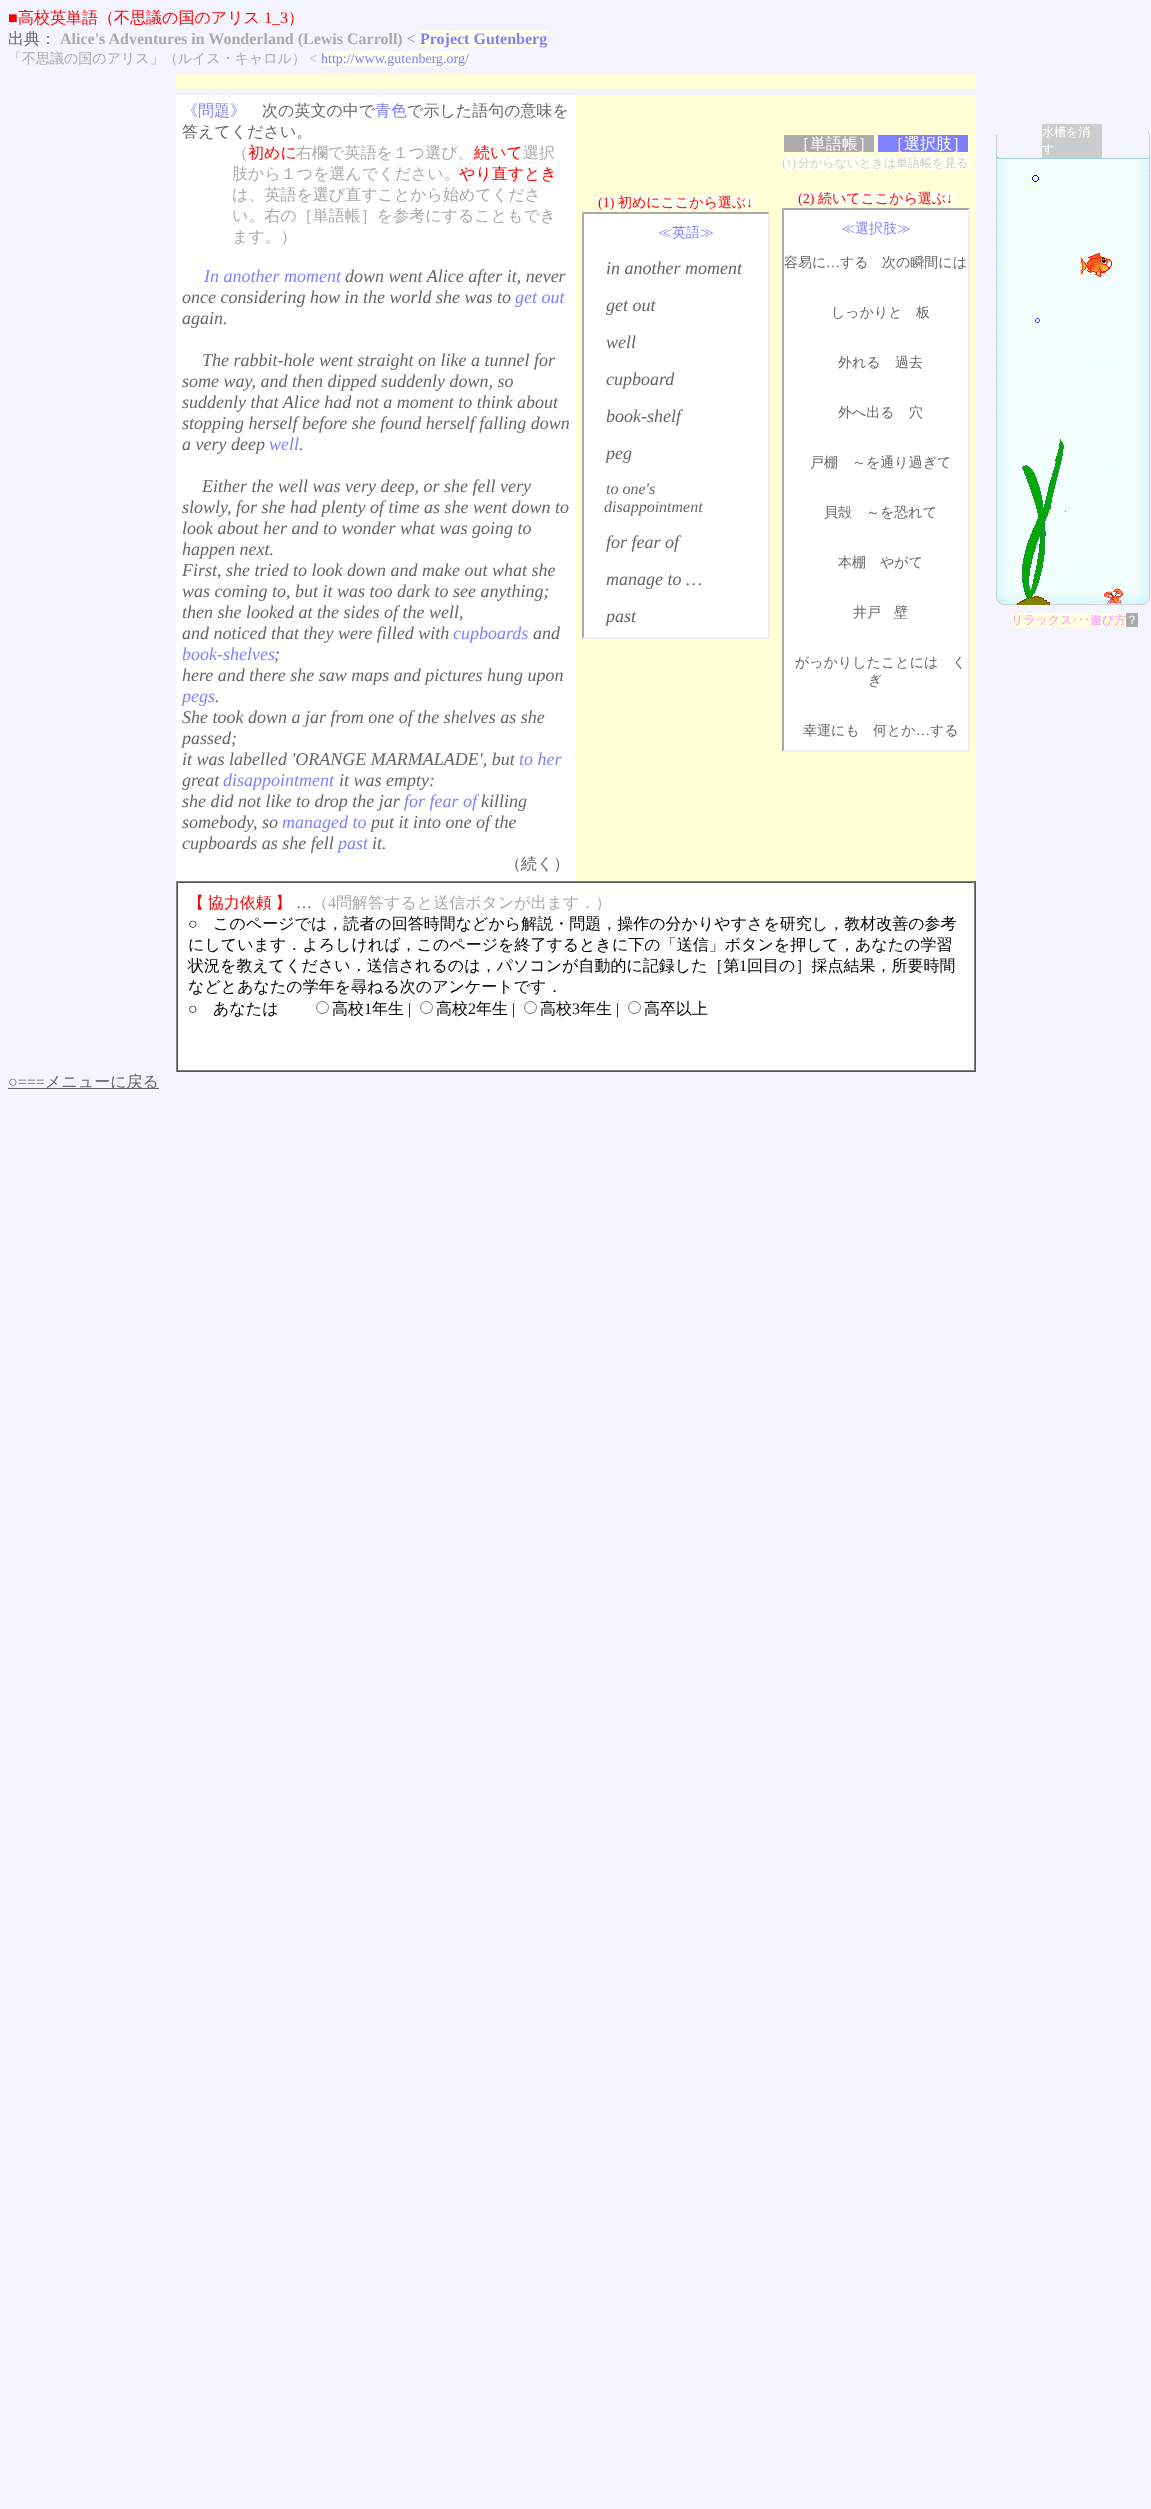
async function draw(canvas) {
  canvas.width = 1151;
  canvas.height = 2509;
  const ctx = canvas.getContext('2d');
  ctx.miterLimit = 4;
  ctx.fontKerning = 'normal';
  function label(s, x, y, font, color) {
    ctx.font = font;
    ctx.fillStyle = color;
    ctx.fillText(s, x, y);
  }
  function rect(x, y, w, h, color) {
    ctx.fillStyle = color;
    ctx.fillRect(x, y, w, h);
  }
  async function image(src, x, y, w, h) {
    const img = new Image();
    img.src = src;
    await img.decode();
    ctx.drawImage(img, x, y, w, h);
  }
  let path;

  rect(0, 0, 1151, 2509, '#f4f4ff');
  label('■', 8, 23, '16px Liberation Serif', '#f00');
  label('高校英単語（不思議の国のアリス', 18, 23, '500 16px WenQuanYi Zen Hei', '#f00');
  label('1_3', 264, 23, '16px Liberation Serif', '#f00');
  label('）', 288, 23, '500 16px WenQuanYi Zen Hei', '#f00');
  label('出典：', 8, 44, '500 16px WenQuanYi Zen Hei', '#666');
  label('Alice\'s Adventures in Wonderland (Lewis Carroll) <', 60, 44, 'bold 16px Liberation Serif', '#aaa');
  rect(420, 30, 127, 17, '#ffe');
  label('Project Gutenberg', 420, 44, 'bold 16px Liberation Serif', '#8080ff');
  label('「不思議の国のアリス」（ルイス・キャロル）', 8, 63, '500 14px WenQuanYi Zen Hei', '#aaa');
  label('<', 309, 63, '14px Liberation Serif', '#aaa');
  rect(321, 51, 148, 15, '#ffe');
  label('http://www.gutenberg.org/', 321, 63, '14px Liberation Serif', '#8080ff');
  rect(176, 74, 800, 15, '#ffffd6');
  rect(176, 95, 400, 786, '#fff');
  label('《問題》', 182, 116, '500 16px WenQuanYi Zen Hei', '#8080ff');
  label('次の英文の中で', 262, 116, '500 16px WenQuanYi Zen Hei', '#666');
  label('青色', 375, 116, '500 16px WenQuanYi Zen Hei', '#8080ff');
  label('で示した語句の意味を', 407, 116, '500 16px WenQuanYi Zen Hei', '#666');
  label('答えてください。', 182, 137, '500 16px WenQuanYi Zen Hei', '#666');
  label('（', 232, 158, '500 16px WenQuanYi Zen Hei', '#aaa');
  label('初めに', 248, 158, '500 16px WenQuanYi Zen Hei', '#f00');
  label('右欄で英語を１つ選び、', 296, 158, '500 16px WenQuanYi Zen Hei', '#aaa');
  label('続いて', 474, 158, '500 16px WenQuanYi Zen Hei', '#f00');
  label('選択', 523, 158, '500 16px WenQuanYi Zen Hei', '#aaa');
  label('肢から１つを選んでください。', 232, 179, '500 16px WenQuanYi Zen Hei', '#aaa');
  label('やり直すとき', 459, 179, '500 16px WenQuanYi Zen Hei', '#f00');
  label('は、英語を選び直すことから始めてくださ', 232, 200, '500 16px WenQuanYi Zen Hei', '#aaa');
  label('い。右の［単語帳］を参考にすることもでき', 232, 221, '500 16px WenQuanYi Zen Hei', '#aaa');
  label('ます。）', 232, 242, '500 16px WenQuanYi Zen Hei', '#aaa');
  label('In another moment', 204, 282, 'italic 18px Liberation Serif', '#8080ff');
  label('down went Alice after it, never', 345, 282, 'italic 18px Liberation Serif', '#666');
  label('once considering how in the world she was to', 182, 303, 'italic 18px Liberation Serif', '#666');
  label('get out', 515, 303, 'italic 18px Liberation Serif', '#8080ff');
  label('again.', 182, 324, 'italic 18px Liberation Serif', '#666');
  label('The rabbit-hole went straight on like a tunnel for', 202, 366, 'italic 18px Liberation Serif', '#666');
  label('some way, and then dipped suddenly down, so', 182, 387, 'italic 18px Liberation Serif', '#666');
  label('suddenly that Alice had not a moment to think about', 182, 408, 'italic 18px Liberation Serif', '#666');
  label('stopping herself before she found herself falling down', 182, 429, 'italic 18px Liberation Serif', '#666');
  label('a very deep', 182, 450, 'italic 18px Liberation Serif', '#666');
  label('well', 269, 450, 'italic 18px Liberation Serif', '#8080ff');
  label('.', 299, 450, 'italic 18px Liberation Serif', '#666');
  label('Either the well was very deep, or she fell very', 202, 492, 'italic 18px Liberation Serif', '#666');
  label('slowly, for she had plenty of time as she went down to', 182, 513, 'italic 18px Liberation Serif', '#666');
  label('look about her and to wonder what was going to', 182, 534, 'italic 18px Liberation Serif', '#666');
  label('happen next.', 182, 555, 'italic 18px Liberation Serif', '#666');
  label('First, she tried to look down and make out what she', 182, 576, 'italic 18px Liberation Serif', '#666');
  label('was coming to, but it was too dark to see anything;', 182, 597, 'italic 18px Liberation Serif', '#666');
  label('then she looked at the sides of the well,', 182, 618, 'italic 18px Liberation Serif', '#666');
  label('and noticed that they were filled with', 182, 639, 'italic 18px Liberation Serif', '#666');
  label('cupboards', 453, 639, 'italic 18px Liberation Serif', '#8080ff');
  label('and', 533, 639, 'italic 18px Liberation Serif', '#666');
  label('book-shelves', 182, 660, 'italic 18px Liberation Serif', '#8080ff');
  label(';', 274, 660, 'italic 18px Liberation Serif', '#666');
  label('here and there she saw maps and pictures hung upon', 182, 681, 'italic 18px Liberation Serif', '#666');
  label('pegs', 182, 702, 'italic 18px Liberation Serif', '#8080ff');
  label('.', 215, 702, 'italic 18px Liberation Serif', '#666');
  label('She took down a jar from one of the shelves as she', 182, 723, 'italic 18px Liberation Serif', '#666');
  label('passed;', 182, 744, 'italic 18px Liberation Serif', '#666');
  label('it was labelled \'ORANGE MARMALADE\', but', 182, 765, 'italic 18px Liberation Serif', '#666');
  label('to her', 519, 765, 'italic 18px Liberation Serif', '#8080ff');
  label('great', 182, 786, 'italic 18px Liberation Serif', '#666');
  label('disappointment', 223, 786, 'italic 18px Liberation Serif', '#8080ff');
  label('it was empty:', 339, 786, 'italic 18px Liberation Serif', '#666');
  label('she did not like to drop the jar', 182, 807, 'italic 18px Liberation Serif', '#666');
  label('for fear of', 404, 807, 'italic 18px Liberation Serif', '#8080ff');
  label('killing', 481, 807, 'italic 18px Liberation Serif', '#666');
  label('somebody, so', 182, 828, 'italic 18px Liberation Serif', '#666');
  label('managed to', 282, 828, 'italic 18px Liberation Serif', '#8080ff');
  label('put it into one of the', 371, 828, 'italic 18px Liberation Serif', '#666');
  label('cupboards as she fell', 182, 849, 'italic 18px Liberation Serif', '#666');
  label('past', 338, 849, 'italic 18px Liberation Serif', '#8080ff');
  label('it.', 372, 849, 'italic 18px Liberation Serif', '#666');
  label('（続く）', 505, 869, '500 16px WenQuanYi Zen Hei', '#666');
  rect(576, 95, 400, 786, '#ffffd6');
  rect(598, 195, 155, 15, '#fffff3');
  label('(1)', 598, 207, '14px Liberation Serif', '#f00');
  label('初めにここから選ぶ', 618, 207, '500 14px WenQuanYi Zen Hei', '#f00');
  label('↓', 746, 207, '14px Liberation Serif', '#f00');
  rect(582, 212, 188, 427, '#fff');
  ctx.fillStyle = '#aaa';
  path = new Path2D('M582 212H770L768 214H584Z');
  ctx.fill(path);
  ctx.fillStyle = '#eee';
  path = new Path2D('M770 212V639L768 637V214Z');
  ctx.fill(path);
  path = new Path2D('M770 639H582L584 637H768Z');
  ctx.fill(path);
  ctx.fillStyle = '#aaa';
  path = new Path2D('M582 639V212L584 214V637Z');
  ctx.fill(path);
  label('≪英語≫', 658, 237, '500 14px WenQuanYi Zen Hei', '#8080ff');
  label('in another moment', 606, 274, 'italic 18px Liberation Serif', '#666');
  label('get out', 606, 311, 'italic 18px Liberation Serif', '#666');
  label('well', 606, 348, 'italic 18px Liberation Serif', '#666');
  label('cupboard', 606, 385, 'italic 18px Liberation Serif', '#666');
  label('book-shelf', 606, 422, 'italic 18px Liberation Serif', '#666');
  label('peg', 606, 459, 'italic 18px Liberation Serif', '#666');
  label('to one\'s', 606, 494, 'italic 16px Liberation Serif', '#666');
  label('disappointment', 604, 512, 'italic 16px Liberation Serif', '#666');
  label('for fear of', 606, 548, 'italic 18px Liberation Serif', '#666');
  label('manage to …', 606, 585, 'italic 18px Liberation Serif', '#666');
  label('past', 606, 622, 'italic 18px Liberation Serif', '#666');
  rect(784, 135, 90, 17, '#aaa');
  label('［単語帳］', 794, 149, '500 16px WenQuanYi Zen Hei', '#fff');
  rect(878, 135, 90, 17, '#8080ff');
  label('［選択肢］', 888, 149, '500 16px WenQuanYi Zen Hei', '#fff');
  await image('assets/img6.png', 996, 132, 154, 473);
  rect(1042, 124, 60, 34, '#ccc');
  label('水槽を消', 1042, 136, '500 12px WenQuanYi Zen Hei', '#fff');
  label('す', 1042, 153, '500 12px WenQuanYi Zen Hei', '#fff');
  await image('assets/img1.png', 1032, 175, 7, 7);
  await image('assets/img2.png', 1080, 253, 32, 24);
  await image('assets/img3.png', 1035, 318, 5, 5);
  await image('assets/img4.png', 1017, 439, 49, 166);
  await image('assets/img5.png', 1103, 588, 21, 17);
  rect(1011, 613, 115, 14, '#ffd');
  label('リラックス', 1011, 624, '500 12px WenQuanYi Zen Hei', '#f8f');
  label('･･･', 1072, 624, '12px IPAGothic', '#f8f');
  label('遊び方', 1090, 624, '500 12px WenQuanYi Zen Hei', '#f8f');
  rect(1126, 613, 12, 14, '#aaa');
  label('？', 1126, 624, '500 12px WenQuanYi Zen Hei', '#fff');
  rect(782, 156, 187, 14, '#fffff3');
  label('(↑)', 782, 167, '12px Liberation Serif', '#ccc');
  label('分からないときは単語帳を見る', 798, 167, '500 12px WenQuanYi Zen Hei', '#ccc');
  rect(798, 191, 155, 15, '#fffff3');
  label('(2)', 798, 203, '14px Liberation Serif', '#f00');
  label('続いてここから選ぶ', 818, 203, '500 14px WenQuanYi Zen Hei', '#f00');
  label('↓', 946, 203, '14px Liberation Serif', '#f00');
  rect(782, 208, 188, 544, '#fff');
  ctx.fillStyle = '#aaa';
  path = new Path2D('M782 208H970L968 210H784Z');
  ctx.fill(path);
  ctx.fillStyle = '#eee';
  path = new Path2D('M970 208V752L968 750V210Z');
  ctx.fill(path);
  path = new Path2D('M970 752H782L784 750H968Z');
  ctx.fill(path);
  ctx.fillStyle = '#aaa';
  path = new Path2D('M782 752V208L784 210V750Z');
  ctx.fill(path);
  label('≪選択肢≫', 841, 233, '500 14px WenQuanYi Zen Hei', '#8080ff');
  label('容易に', 784, 267, '500 14px WenQuanYi Zen Hei', '#666');
  label('…', 826, 267, '14px Liberation Serif', '#666');
  label('する', 840, 267, '500 14px WenQuanYi Zen Hei', '#666');
  label('次の瞬間には', 882, 267, '500 14px WenQuanYi Zen Hei', '#666');
  label('しっかりと', 831, 317, '500 14px WenQuanYi Zen Hei', '#666');
  label('板', 916, 317, '500 14px WenQuanYi Zen Hei', '#666');
  label('外れる', 838, 367, '500 14px WenQuanYi Zen Hei', '#666');
  label('過去', 895, 367, '500 14px WenQuanYi Zen Hei', '#666');
  label('外へ出る', 838, 417, '500 14px WenQuanYi Zen Hei', '#666');
  label('穴', 909, 417, '500 14px WenQuanYi Zen Hei', '#666');
  label('戸棚', 810, 467, '500 14px WenQuanYi Zen Hei', '#666');
  label('～を通り過ぎて', 852, 467, '500 14px WenQuanYi Zen Hei', '#666');
  label('貝殻', 824, 517, '500 14px WenQuanYi Zen Hei', '#666');
  label('～を恐れて', 866, 517, '500 14px WenQuanYi Zen Hei', '#666');
  label('本棚', 838, 567, '500 14px WenQuanYi Zen Hei', '#666');
  label('やがて', 880, 567, '500 14px WenQuanYi Zen Hei', '#666');
  label('井戸', 853, 617, '500 14px WenQuanYi Zen Hei', '#666');
  label('壁', 894, 617, '500 14px WenQuanYi Zen Hei', '#666');
  label('がっかりしたことには', 795, 667, '500 14px WenQuanYi Zen Hei', '#666');
  label('く', 952, 667, '500 14px WenQuanYi Zen Hei', '#666');
  label('ぎ', 868, 685, '500 14px WenQuanYi Zen Hei', '#666');
  label('幸運にも', 803, 735, '500 14px WenQuanYi Zen Hei', '#666');
  label('何とか', 873, 735, '500 14px WenQuanYi Zen Hei', '#666');
  label('…', 916, 735, '14px Liberation Serif', '#666');
  label('する', 930, 735, '500 14px WenQuanYi Zen Hei', '#666');
  rect(178, 883, 796, 187, '#fff');
  rect(176, 881, 800, 1, '#808080');
  rect(975, 881, 1, 191, '#555');
  rect(176, 1071, 800, 1, '#555');
  rect(176, 881, 1, 191, '#808080');
  rect(177, 882, 798, 1, '#555');
  rect(974, 882, 1, 189, '#808080');
  rect(177, 1070, 798, 1, '#808080');
  rect(177, 882, 1, 189, '#555');
  ctx.wordSpacing = '-1px';
  label('【 協力依頼 】', 188, 908, '500 16px WenQuanYi Zen Hei', '#f00');
  ctx.wordSpacing = '0px';
  label('…', 296, 908, '16px Liberation Serif', '#666');
  label('（', 312, 908, '500 16px WenQuanYi Zen Hei', '#aaa');
  label('4', 328, 908, '16px Liberation Serif', '#aaa');
  label('問解答すると送信ボタンが出ます．）', 336, 908, '500 16px WenQuanYi Zen Hei', '#aaa');
  label('○', 188, 929, '16px Liberation Serif', '#000');
  label('このページでは，読者の回答時間などから解説・問題，操作の分かりやすさを研究し，教材改善の参考', 213, 929, '500 16px WenQuanYi Zen Hei', '#000');
  label('にしています．よろしければ，このページを終了するときに下の「送信」ボタンを押して，あなたの学習', 188, 950, '500 16px WenQuanYi Zen Hei', '#000');
  label('状況を教えてください．送信されるのは，パソコンが自動的に記録した［第', 188, 971, '500 16px WenQuanYi Zen Hei', '#000');
  label('1', 739, 971, '16px Liberation Serif', '#000');
  label('回目の］採点結果，所要時間', 747, 971, '500 16px WenQuanYi Zen Hei', '#000');
  label('などとあなたの学年を尋ねる次のアンケートです．', 188, 992, '500 16px WenQuanYi Zen Hei', '#000');
  label('○', 188, 1014, '16px Liberation Serif', '#000');
  label('あなたは', 213, 1014, '500 16px WenQuanYi Zen Hei', '#000');
  ctx.beginPath();
  ctx.arc(322.5, 1007.5, 6, 0, 2 * Math.PI);
  ctx.strokeStyle = '#767676';
  ctx.stroke();
  label('高校', 332, 1014, '500 16px WenQuanYi Zen Hei', '#000');
  label('1', 364, 1014, '16px Liberation Serif', '#000');
  label('年生', 372, 1014, '500 16px WenQuanYi Zen Hei', '#000');
  label('|', 408, 1014, '16px Liberation Serif', '#000');
  ctx.beginPath();
  ctx.arc(426.5, 1007.5, 6, 0, 2 * Math.PI);
  ctx.stroke();
  label('高校', 436, 1014, '500 16px WenQuanYi Zen Hei', '#000');
  label('2', 468, 1014, '16px Liberation Serif', '#000');
  label('年生', 476, 1014, '500 16px WenQuanYi Zen Hei', '#000');
  label('|', 512, 1014, '16px Liberation Serif', '#000');
  ctx.beginPath();
  ctx.arc(530.5, 1007.5, 6, 0, 2 * Math.PI);
  ctx.stroke();
  label('高校', 540, 1014, '500 16px WenQuanYi Zen Hei', '#000');
  label('3', 572, 1014, '16px Liberation Serif', '#000');
  label('年生', 580, 1014, '500 16px WenQuanYi Zen Hei', '#000');
  label('|', 616, 1014, '16px Liberation Serif', '#000');
  ctx.beginPath();
  ctx.arc(634.5, 1007.5, 6, 0, 2 * Math.PI);
  ctx.stroke();
  label('高卒以上', 644, 1014, '500 16px WenQuanYi Zen Hei', '#000');
  label('○===', 8, 1087, '16px Liberation Serif', '#666');
  rect(8, 1088, 151, 1, '#666');
  label('メニューに戻る', 45, 1087, '500 16px WenQuanYi Zen Hei', '#666');
}

draw(document.querySelector('canvas'));
